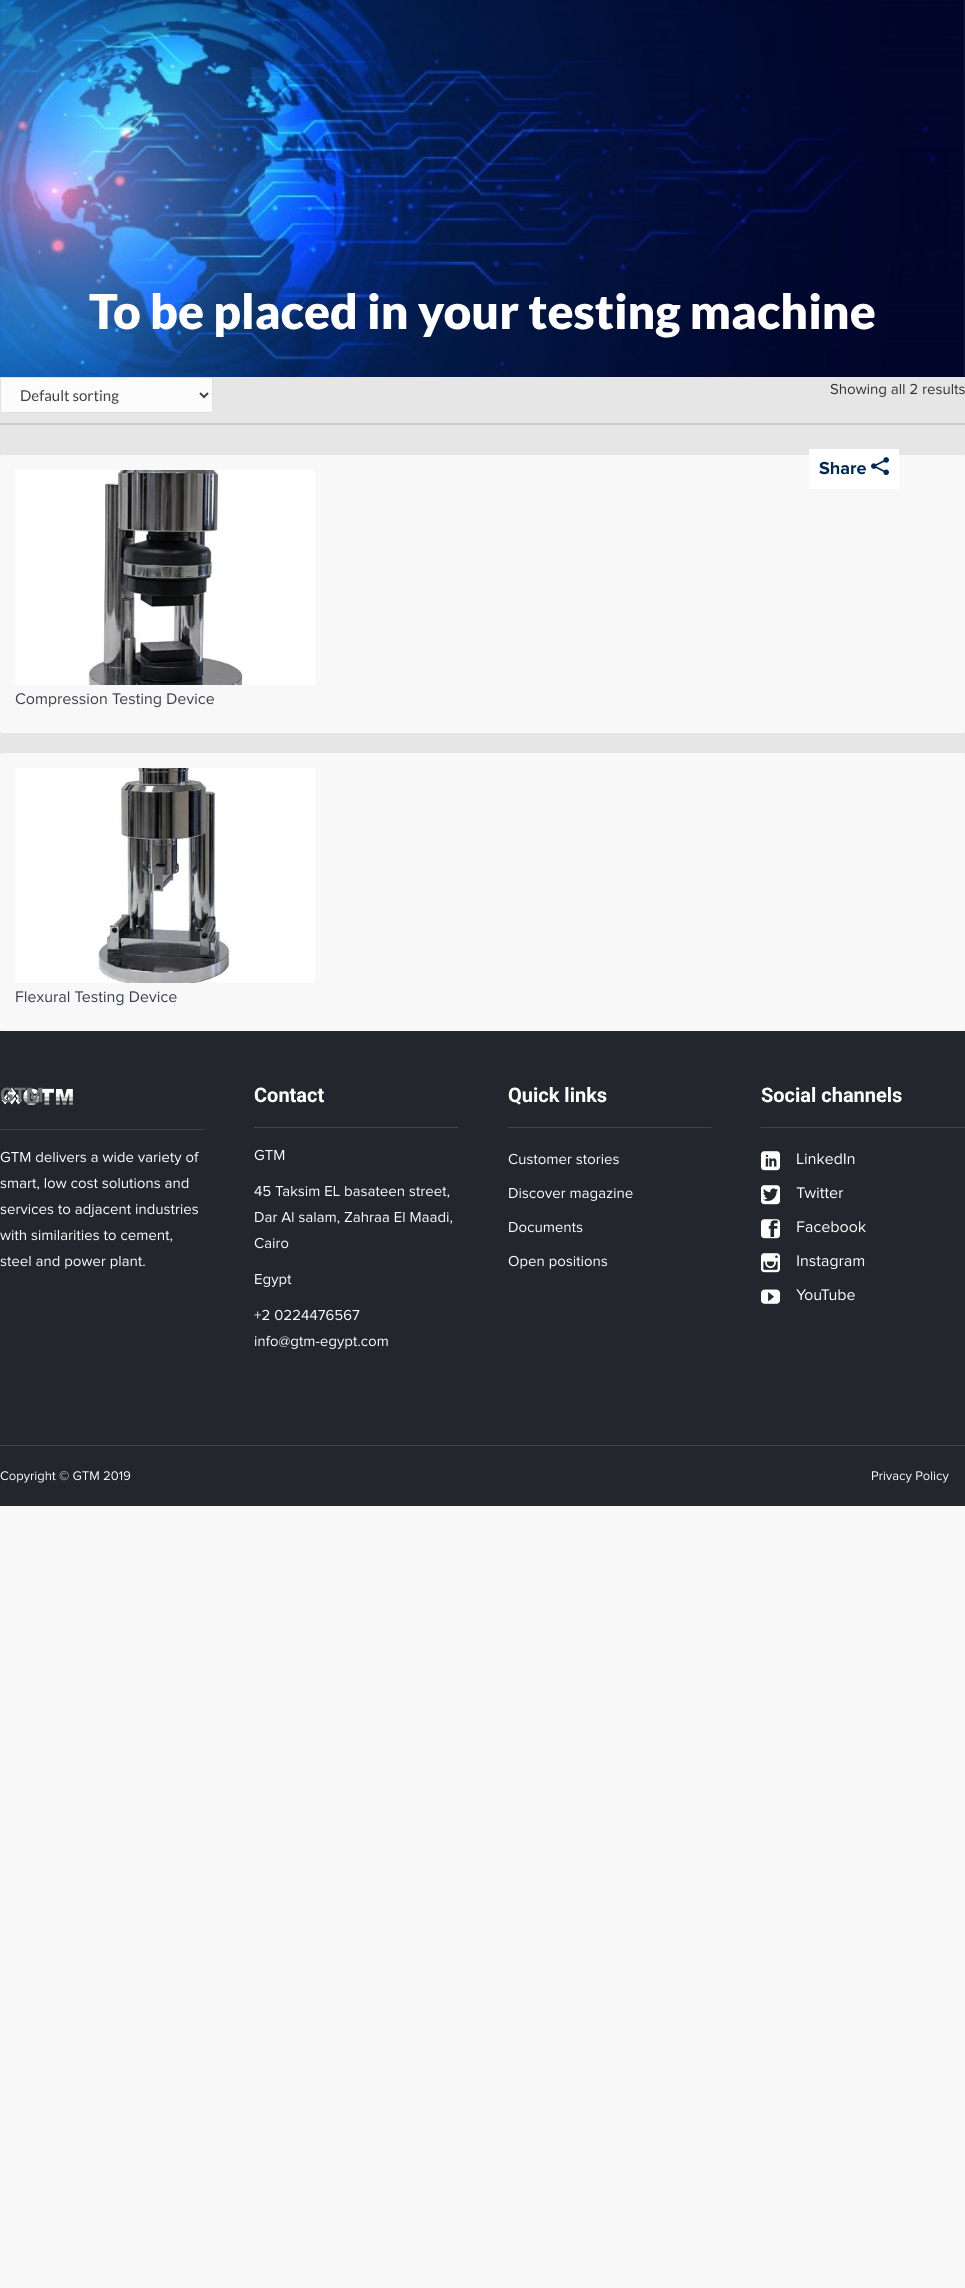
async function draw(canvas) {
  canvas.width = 965;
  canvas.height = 2288;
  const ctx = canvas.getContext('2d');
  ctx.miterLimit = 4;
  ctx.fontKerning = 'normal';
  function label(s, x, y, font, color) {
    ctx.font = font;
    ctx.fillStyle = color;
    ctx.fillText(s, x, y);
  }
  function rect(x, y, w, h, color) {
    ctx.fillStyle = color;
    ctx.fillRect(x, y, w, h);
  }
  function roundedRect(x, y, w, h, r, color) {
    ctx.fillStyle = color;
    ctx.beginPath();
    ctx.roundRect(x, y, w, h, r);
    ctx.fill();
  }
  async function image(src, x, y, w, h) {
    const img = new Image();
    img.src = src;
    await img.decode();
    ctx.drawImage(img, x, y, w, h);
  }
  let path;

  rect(0, 0, 965, 2288, '#f8f8f9');
  rect(0, 377, 965, 654, '#e6e6e6');
  await image('assets/img1.png', 0, 0, 965, 377);
  label('To be placed in your testing machine', 89, 329, '900 48px Lato', '#fff');
  rect(0, 423, 965, 2, '#ccc');
  ctx.fillStyle = '#fcfcfc';
  ctx.beginPath();
  ctx.roundRect(0.5, 377.5, 212, 35, 1.5);
  ctx.fill();
  ctx.strokeStyle = '#e0e1e1';
  ctx.stroke();
  path = new Path2D('M200 393L204 397L208 393');
  ctx.strokeStyle = '#444';
  ctx.lineWidth = 2;
  ctx.stroke(path);
  label('Default sorting', 20, 401, '15px Lato', '#444');
  await image('assets/img2.png', 830, 383, 135, 14);
  roundedRect(0, 455, 965, 278, 2, '#f8f8f9');
  rect(15, 470, 300, 215, '#fff');
  await image('assets/img3.png', 88, 470, 155, 215);
  await image('assets/img4.png', 15, 693, 199, 15);
  roundedRect(0, 753, 965, 278, 2, '#f8f8f9');
  rect(15, 768, 300, 215, '#fff');
  await image('assets/img5.png', 96, 768, 137, 215);
  await image('assets/img6.png', 16, 991, 161, 15);
  rect(809, 449, 90, 40, '#fff');
  await image('assets/img7.png', 819, 461, 47, 14);
  await image('assets/img8.png', 871, 457, 18, 19);
  rect(0, 1031, 965, 475, '#23262d');
  await image('assets/img9.png', 1, 1087, 72, 18);
  rect(0, 1129, 204, 1, '#41444a');
  label('GTM', 0, 1102, 'bold 20px Roboto', '#707277');
  await image('assets/img10.png', 0, 1151, 199, 14);
  await image('assets/img11.png', 0, 1178, 189, 12);
  await image('assets/img12.png', 0, 1204, 198, 13);
  await image('assets/img13.png', 0, 1230, 173, 12);
  await image('assets/img14.png', 0, 1256, 145, 13);
  rect(254, 1127, 204, 1, '#41444a');
  label('Contact', 254, 1102, 'bold 20px Roboto', '#fff');
  await image('assets/img15.png', 254, 1149, 31, 12);
  await image('assets/img16.png', 254, 1186, 196, 12);
  await image('assets/img17.png', 255, 1212, 198, 12);
  await image('assets/img18.png', 254, 1237, 35, 12);
  await image('assets/img19.png', 255, 1274, 37, 13);
  await image('assets/img20.png', 254, 1309, 106, 12);
  await image('assets/img21.png', 255, 1335, 133, 14);
  rect(508, 1127, 203, 1, '#41444a');
  label('Quick links', 508, 1102, 'bold 20px Roboto', '#fff');
  await image('assets/img22.png', 508, 1153, 111, 12);
  await image('assets/img23.png', 509, 1188, 124, 13);
  await image('assets/img24.png', 509, 1222, 74, 11);
  await image('assets/img25.png', 508, 1255, 99, 14);
  rect(761, 1127, 204, 1, '#41444a');
  label('Social channels', 761, 1102, 'bold 20px Roboto', '#fff');
  await image('assets/img26.png', 761, 1151, 19, 20);
  await image('assets/img27.png', 797, 1153, 58, 12);
  await image('assets/img28.png', 761, 1185, 19, 20);
  await image('assets/img29.png', 796, 1187, 48, 12);
  await image('assets/img30.png', 761, 1219, 19, 20);
  await image('assets/img31.png', 797, 1221, 69, 12);
  await image('assets/img32.png', 761, 1253, 19, 20);
  await image('assets/img33.png', 797, 1255, 68, 15);
  await image('assets/img34.png', 761, 1289, 19, 15);
  await image('assets/img35.png', 796, 1289, 59, 12);
  rect(0, 1445, 965, 1, '#404248');
  await image('assets/img36.png', 0, 1471, 131, 12);
  await image('assets/img37.png', 872, 1471, 77, 12);
}

draw(document.querySelector('canvas'));
